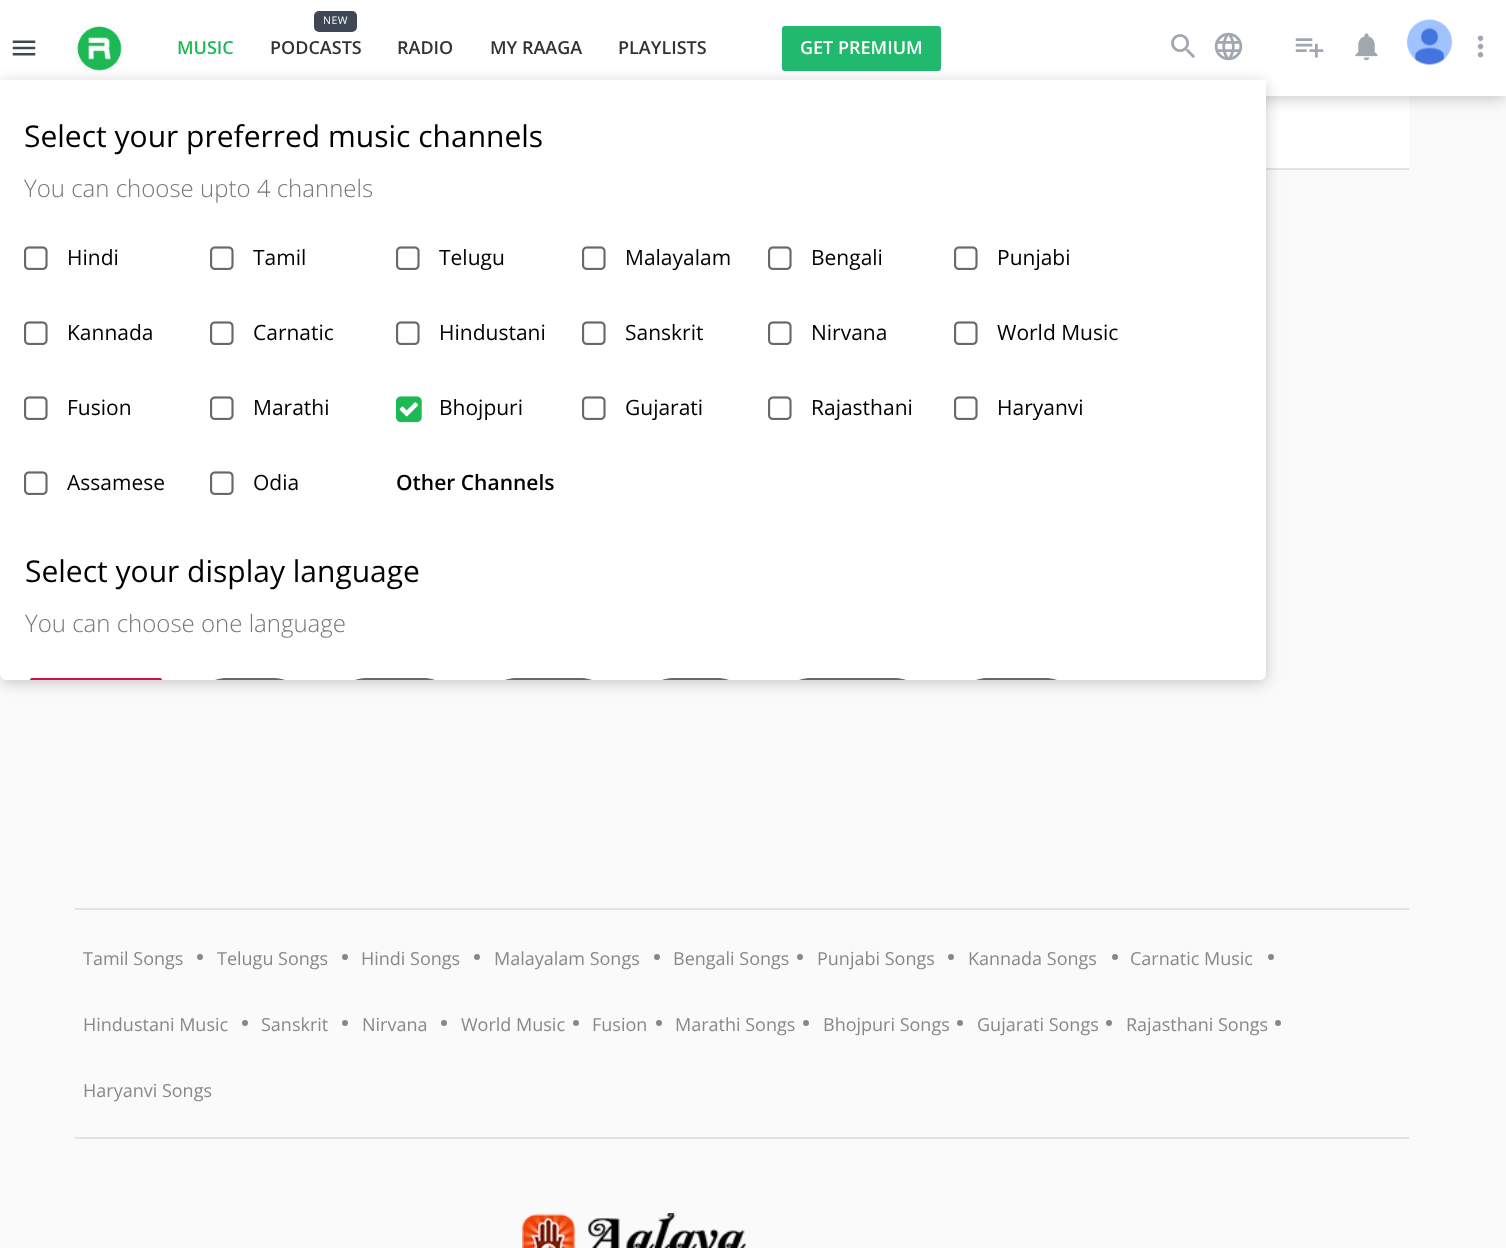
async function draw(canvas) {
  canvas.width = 1506;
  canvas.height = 1248;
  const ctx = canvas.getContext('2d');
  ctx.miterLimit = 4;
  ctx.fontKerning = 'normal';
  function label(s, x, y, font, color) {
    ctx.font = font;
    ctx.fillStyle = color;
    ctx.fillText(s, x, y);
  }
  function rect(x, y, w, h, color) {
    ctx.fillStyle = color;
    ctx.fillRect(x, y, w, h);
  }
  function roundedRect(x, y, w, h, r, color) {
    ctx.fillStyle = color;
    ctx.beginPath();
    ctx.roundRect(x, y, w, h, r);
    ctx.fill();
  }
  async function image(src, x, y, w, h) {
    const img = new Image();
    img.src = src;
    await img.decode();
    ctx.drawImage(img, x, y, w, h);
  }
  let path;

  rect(0, 0, 1506, 1248, '#fafafa');
  rect(1266, 96, 143, 72, '#fff');
  ctx.fillStyle = '#00000033';
  ctx.filter = 'blur(7.5px)';
  ctx.beginPath();
  ctx.rect(0, 3, 1506, 96);
  ctx.fill();
  ctx.filter = 'none';
  rect(0, 0, 1506, 96, '#fff');
  await image('assets/img1.png', 12, 40, 24, 16);
  await image('assets/img2.png', 76, 25, 46, 46);
  label('MUSIC', 177, 54, '600 18px Open Sans', '#1db954');
  roundedRect(314, 11, 43, 21, 5, '#3e4755');
  ctx.letterSpacing = '0.5px';
  label('NEW', 323, 24, '10.5px Open Sans', '#fff');
  ctx.letterSpacing = '0px';
  label('PODCASTS', 270, 54, '600 18px Open Sans', '#333');
  label('RADIO', 397, 54, '600 18px Open Sans', '#333');
  label('MY RAAGA', 490, 54, '600 18px Open Sans', '#333');
  label('PLAYLISTS', 618, 54, '600 18px Open Sans', '#333');
  roundedRect(782, 26, 159, 45, 3, '#21b96e');
  label('GET PREMIUM', 800, 54, '600 18px Open Sans', '#fff');
  await image('assets/img3.png', 1171, 34, 24, 24);
  await image('assets/img4.png', 1295, 38, 29, 20);
  await image('assets/img5.png', 1355, 33, 23, 28);
  await image('assets/img6.png', 1407, 19, 45, 46);
  await image('assets/img7.png', 1477, 35, 7, 23);
  await image('assets/img8.png', 1214, 32, 29, 29);
  rect(1266, 168, 143, 2, '#e3e3e3');
  ctx.fillStyle = '#00000033';
  ctx.filter = 'blur(7.5px)';
  ctx.beginPath();
  ctx.roundRect(0, 83, 1266, 600, 6);
  ctx.fill();
  ctx.filter = 'none';
  ctx.fillStyle = '#fff';
  ctx.beginPath();
  ctx.roundRect(0, 80, 1266, 600, [0, 0, 6, 6]);
  ctx.fill();
  label('Select your preferred music channels', 24, 147, '30px Open Sans', '#000');
  label('You can choose upto 4 channels', 24, 197, '300 24px Open Sans', '#777');
  await image('assets/img9.png', 24, 246, 24, 24);
  label('Hindi', 67, 265, '21px Open Sans', '#000');
  await image('assets/img9.png', 210, 246, 24, 24);
  label('Tamil', 253, 265, '21px Open Sans', '#000');
  await image('assets/img9.png', 396, 246, 24, 24);
  label('Telugu', 439, 265, '21px Open Sans', '#000');
  await image('assets/img9.png', 582, 246, 24, 24);
  label('Malayalam', 625, 265, '21px Open Sans', '#000');
  await image('assets/img9.png', 768, 246, 24, 24);
  label('Bengali', 811, 265, '21px Open Sans', '#000');
  await image('assets/img9.png', 954, 246, 24, 24);
  label('Punjabi', 997, 265, '21px Open Sans', '#000');
  await image('assets/img9.png', 24, 321, 24, 24);
  label('Kannada', 67, 340, '21px Open Sans', '#000');
  await image('assets/img9.png', 210, 321, 24, 24);
  label('Carnatic', 253, 340, '21px Open Sans', '#000');
  await image('assets/img9.png', 396, 321, 24, 24);
  label('Hindustani', 439, 340, '21px Open Sans', '#000');
  await image('assets/img9.png', 582, 321, 24, 24);
  label('Sanskrit', 625, 340, '21px Open Sans', '#000');
  await image('assets/img9.png', 768, 321, 24, 24);
  label('Nirvana', 811, 340, '21px Open Sans', '#000');
  await image('assets/img9.png', 954, 321, 24, 24);
  label('World Music', 997, 340, '21px Open Sans', '#000');
  await image('assets/img9.png', 24, 396, 24, 24);
  label('Fusion', 67, 415, '21px Open Sans', '#000');
  await image('assets/img9.png', 210, 396, 24, 24);
  label('Marathi', 253, 415, '21px Open Sans', '#000');
  await image('assets/img10.png', 396, 396, 26, 27);
  label('Bhojpuri', 439, 415, '21px Open Sans', '#000');
  await image('assets/img9.png', 582, 396, 24, 24);
  label('Gujarati', 625, 415, '21px Open Sans', '#000');
  await image('assets/img9.png', 768, 396, 24, 24);
  label('Rajasthani', 811, 415, '21px Open Sans', '#000');
  await image('assets/img9.png', 954, 396, 24, 24);
  label('Haryanvi', 997, 415, '21px Open Sans', '#000');
  await image('assets/img9.png', 24, 471, 24, 24);
  label('Assamese', 67, 490, '21px Open Sans', '#000');
  await image('assets/img9.png', 210, 471, 24, 24);
  label('Odia', 253, 490, '21px Open Sans', '#000');
  label('Other Channels', 396, 490, '600 21px Open Sans', '#000');
  label('Select your display language', 25, 582, '30px Open Sans', '#000');
  label('You can choose one language', 25, 632, '300 24px Open Sans', '#777');
  ctx.fillStyle = '#d40f47';
  ctx.beginPath();
  ctx.roundRect(30, 678, 132, 2, [27, 27, 0, 0]);
  ctx.fill();
  path = new Path2D('M57 678C53 678 50 679 47 680H145C142 679 139 678 135 678Z');
  ctx.fill(path);
  ctx.fillStyle = '#fff';
  ctx.beginPath();
  ctx.roundRect(198, 678, 104, 2, [27, 27, 0, 0]);
  ctx.fill();
  ctx.fillStyle = '#6a6868';
  path = new Path2D('M225 678C221 678 218 679 215 680H285C282 679 279 678 275 678Z');
  ctx.fill(path);
  ctx.fillStyle = '#fff';
  ctx.beginPath();
  ctx.roundRect(338, 678, 114, 2, [27, 27, 0, 0]);
  ctx.fill();
  ctx.fillStyle = '#6a6868';
  path = new Path2D('M365 678C361 678 358 679 355 680H435C432 679 429 678 425 678Z');
  ctx.fill(path);
  ctx.fillStyle = '#fff';
  ctx.beginPath();
  ctx.roundRect(488, 678, 121, 2, [27, 27, 0, 0]);
  ctx.fill();
  ctx.fillStyle = '#6a6868';
  path = new Path2D('M515 678C511 678 508 679 505 680H592C589 679 586 678 582 678Z');
  ctx.fill(path);
  ctx.fillStyle = '#fff';
  ctx.beginPath();
  ctx.roundRect(645, 678, 101, 2, [27, 27, 0, 0]);
  ctx.fill();
  ctx.fillStyle = '#6a6868';
  path = new Path2D('M672 678C668 678 665 679 662 680H729C726 679 723 678 719 678Z');
  ctx.fill(path);
  ctx.fillStyle = '#fff';
  ctx.beginPath();
  ctx.roundRect(782, 678, 141, 2, [27, 27, 0, 0]);
  ctx.fill();
  ctx.fillStyle = '#6a6868';
  path = new Path2D('M809 678C805 678 802 679 799 680H906C903 679 900 678 896 678Z');
  ctx.fill(path);
  ctx.fillStyle = '#fff';
  ctx.beginPath();
  ctx.roundRect(959, 678, 115, 2, [27, 27, 0, 0]);
  ctx.fill();
  ctx.fillStyle = '#6a6868';
  path = new Path2D('M986 678C982 678 979 679 976 680H1057C1054 679 1051 678 1047 678Z');
  ctx.fill(path);
  rect(75, 908, 1334, 2, '#e3e3e3');
  rect(75, 1137, 1334, 2, '#e3e3e3');
  label('Tamil Songs', 83, 965, '18px Open Sans', '#888');
  ctx.beginPath();
  ctx.arc(200, 957, 2, 0, 2 * Math.PI);
  ctx.fill();
  ctx.strokeStyle = '#888';
  ctx.lineWidth = 2;
  ctx.stroke();
  label('Telugu Songs', 217, 965, '18px Open Sans', '#888');
  ctx.beginPath();
  ctx.arc(345, 957, 2, 0, 2 * Math.PI);
  ctx.fill();
  ctx.stroke();
  label('Hindi Songs', 361, 965, '18px Open Sans', '#888');
  ctx.beginPath();
  ctx.arc(477, 957, 2, 0, 2 * Math.PI);
  ctx.fill();
  ctx.stroke();
  label('Malayalam Songs', 494, 965, '18px Open Sans', '#888');
  ctx.beginPath();
  ctx.arc(657, 957, 2, 0, 2 * Math.PI);
  ctx.fill();
  ctx.stroke();
  label('Bengali Songs', 673, 965, '18px Open Sans', '#888');
  ctx.beginPath();
  ctx.arc(800, 957, 2, 0, 2 * Math.PI);
  ctx.fill();
  ctx.stroke();
  label('Punjabi Songs', 817, 965, '18px Open Sans', '#888');
  ctx.beginPath();
  ctx.arc(951, 957, 2, 0, 2 * Math.PI);
  ctx.fill();
  ctx.stroke();
  label('Kannada Songs', 968, 965, '18px Open Sans', '#888');
  ctx.beginPath();
  ctx.arc(1115, 957, 2, 0, 2 * Math.PI);
  ctx.fill();
  ctx.stroke();
  label('Carnatic Music', 1130, 965, '18px Open Sans', '#888');
  ctx.beginPath();
  ctx.arc(1271, 957, 2, 0, 2 * Math.PI);
  ctx.fill();
  ctx.stroke();
  label('Hindustani Music', 83, 1031, '18px Open Sans', '#888');
  ctx.beginPath();
  ctx.arc(245, 1023, 2, 0, 2 * Math.PI);
  ctx.fill();
  ctx.stroke();
  label('Sanskrit', 261, 1031, '18px Open Sans', '#888');
  ctx.beginPath();
  ctx.arc(345, 1023, 2, 0, 2 * Math.PI);
  ctx.fill();
  ctx.stroke();
  label('Nirvana', 362, 1031, '18px Open Sans', '#888');
  ctx.beginPath();
  ctx.arc(444, 1023, 2, 0, 2 * Math.PI);
  ctx.fill();
  ctx.stroke();
  label('World Music', 461, 1031, '18px Open Sans', '#888');
  ctx.beginPath();
  ctx.arc(576, 1023, 2, 0, 2 * Math.PI);
  ctx.fill();
  ctx.stroke();
  label('Fusion', 592, 1031, '18px Open Sans', '#888');
  ctx.beginPath();
  ctx.arc(659, 1023, 2, 0, 2 * Math.PI);
  ctx.fill();
  ctx.stroke();
  label('Marathi Songs', 675, 1031, '18px Open Sans', '#888');
  ctx.beginPath();
  ctx.arc(806, 1023, 2, 0, 2 * Math.PI);
  ctx.fill();
  ctx.stroke();
  label('Bhojpuri Songs', 823, 1031, '18px Open Sans', '#888');
  ctx.beginPath();
  ctx.arc(960, 1023, 2, 0, 2 * Math.PI);
  ctx.fill();
  ctx.stroke();
  label('Gujarati Songs', 977, 1031, '18px Open Sans', '#888');
  ctx.beginPath();
  ctx.arc(1109, 1023, 2, 0, 2 * Math.PI);
  ctx.fill();
  ctx.stroke();
  label('Rajasthani Songs', 1126, 1031, '18px Open Sans', '#888');
  ctx.beginPath();
  ctx.arc(1278, 1023, 2, 0, 2 * Math.PI);
  ctx.fill();
  ctx.stroke();
  label('Haryanvi Songs', 83, 1097, '18px Open Sans', '#888');
  await image('assets/img11.png', 522, 1213, 224, 35);
}

draw(document.querySelector('canvas'));
